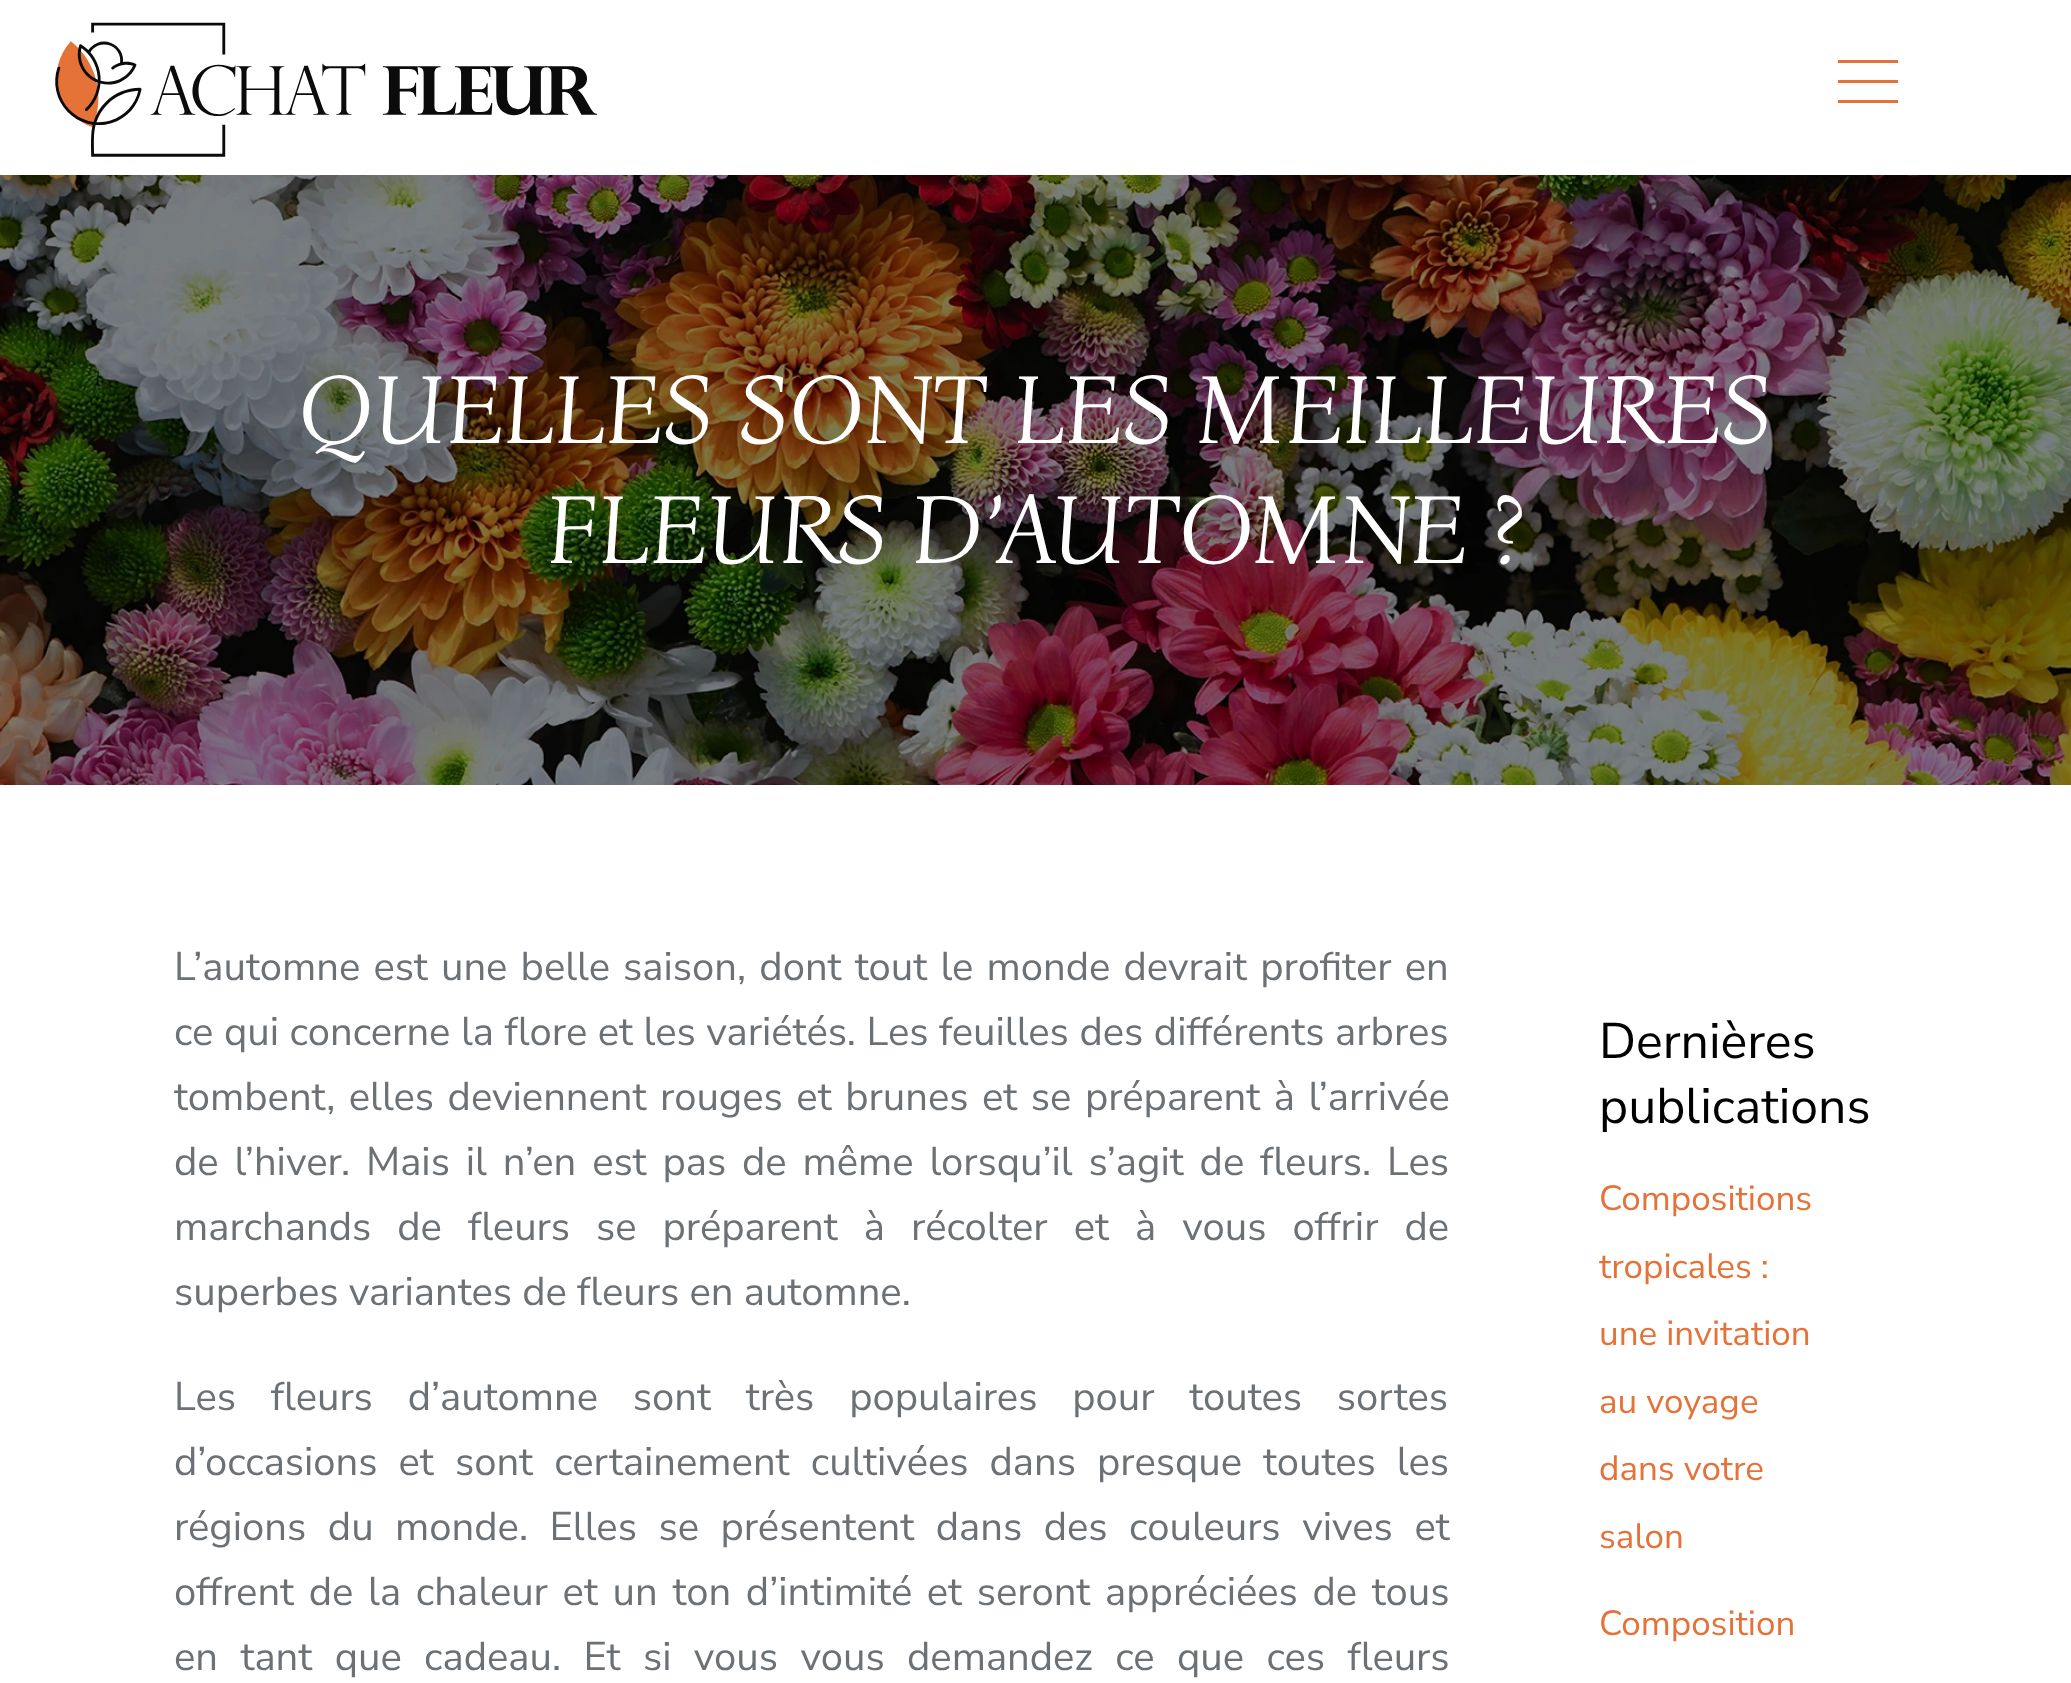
async function draw(canvas) {
  canvas.width = 2071;
  canvas.height = 1683;
  const ctx = canvas.getContext('2d');
  ctx.miterLimit = 4;
  ctx.fontKerning = 'normal';
  function label(s, x, y, font, color) {
    ctx.font = font;
    ctx.fillStyle = color;
    ctx.fillText(s, x, y);
  }
  function rect(x, y, w, h, color) {
    ctx.fillStyle = color;
    ctx.fillRect(x, y, w, h);
  }
  async function image(src, x, y, w, h) {
    const img = new Image();
    img.src = src;
    await img.decode();
    ctx.drawImage(img, x, y, w, h);
  }

  rect(0, 0, 2071, 1683, '#fff');
  await image('assets/img1.png', 55, 22, 543, 135);
  rect(1838, 60, 60, 3, '#e57339');
  rect(1838, 80, 60, 3, '#e57339');
  rect(1838, 100, 60, 3, '#e57339');
  await image('assets/img2.png', 0, 175, 2071, 610);
  ctx.letterSpacing = '0.6px';
  label('QUELLES SONT LES MEILLEURES', 299, 443, 'italic 100px Bona Nova', '#fff');
  label('FLEURS D’AUTOMNE ?', 547, 563, 'italic 100px Bona Nova', '#fff');
  ctx.letterSpacing = '0px';
  ctx.wordSpacing = '2.9px';
  label('L’automne est une belle saison, dont tout le monde devrait profiter en', 174, 980, '40px Nunito Sans', '#6c7176');
  ctx.wordSpacing = '0.3px';
  label('ce qui concerne la flore et les variétés. Les feuilles des différents arbres', 174, 1045, '40px Nunito Sans', '#6c7176');
  ctx.wordSpacing = '3.25px';
  label('tombent, elles deviennent rouges et brunes et se préparent à l’arrivée', 174, 1110, '40px Nunito Sans', '#6c7176');
  ctx.wordSpacing = '5.6px';
  label('de l’hiver. Mais il n’en est pas de même lorsqu’il s’agit de fleurs. Les', 174, 1175, '40px Nunito Sans', '#6c7176');
  ctx.wordSpacing = '15.75px';
  label('marchands de fleurs se préparent à récolter et à vous offrir de', 174, 1240, '40px Nunito Sans', '#6c7176');
  ctx.wordSpacing = '0px';
  label('superbes variantes de fleurs en automne.', 174, 1305, '40px Nunito Sans', '#6c7176');
  ctx.wordSpacing = '24.5px';
  label('Les fleurs d’automne sont très populaires pour toutes sortes', 174, 1410, '40px Nunito Sans', '#6c7176');
  ctx.wordSpacing = '10.75px';
  label('d’occasions et sont certainement cultivées dans presque toutes les', 174, 1475, '40px Nunito Sans', '#6c7176');
  ctx.wordSpacing = '11.25px';
  label('régions du monde. Elles se présentent dans des couleurs vives et', 174, 1540, '40px Nunito Sans', '#6c7176');
  ctx.wordSpacing = '4.4px';
  label('offrent de la chaleur et un ton d’intimité et seront appréciées de tous', 174, 1605, '40px Nunito Sans', '#6c7176');
  ctx.wordSpacing = '12.1px';
  label('en tant que cadeau. Et si vous vous demandez ce que ces fleurs', 174, 1670, '40px Nunito Sans', '#6c7176');
  ctx.wordSpacing = '0px';
  label('Dernières', 1599, 1058, '50px Nunito Sans', '#000');
  label('publications', 1599, 1123, '50px Nunito Sans', '#000');
  label('Compositions', 1599, 1210, '35px Nunito Sans', '#e57339');
  label('tropicales :', 1599, 1278, '35px Nunito Sans', '#e57339');
  label('une invitation', 1599, 1345, '35px Nunito Sans', '#e57339');
  label('au voyage', 1599, 1413, '35px Nunito Sans', '#e57339');
  label('dans votre', 1599, 1480, '35px Nunito Sans', '#e57339');
  label('salon', 1599, 1548, '35px Nunito Sans', '#e57339');
  label('Composition', 1599, 1635, '35px Nunito Sans', '#e57339');
}

draw(document.querySelector('canvas'));
